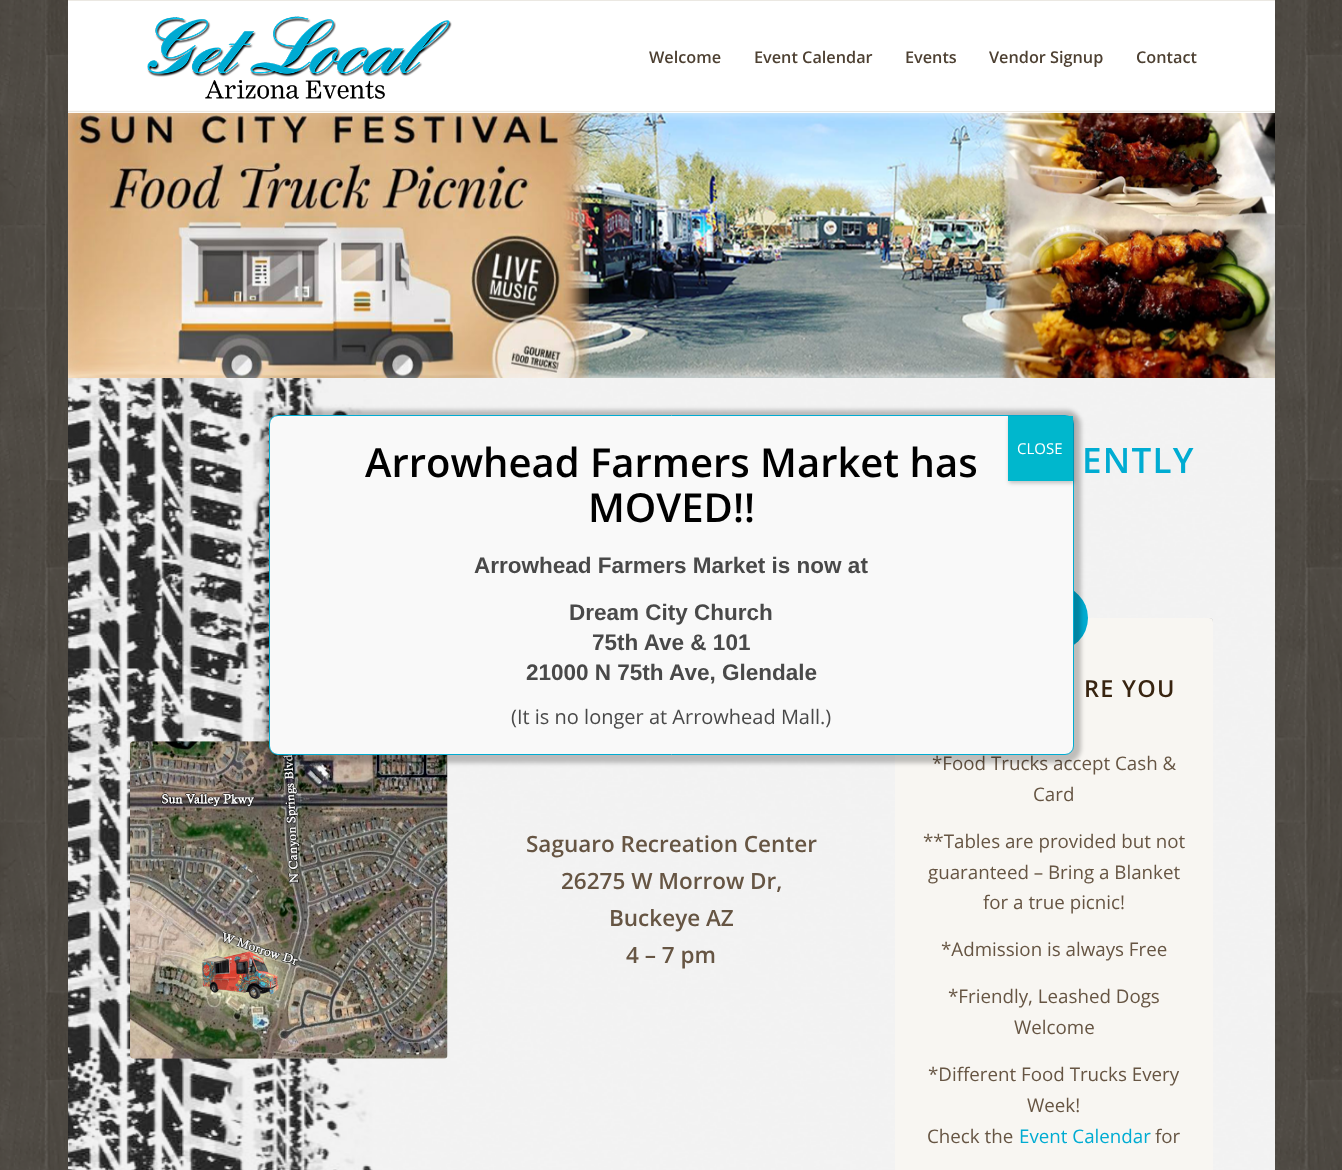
async function draw(canvas) {
  canvas.width = 1342;
  canvas.height = 1170;
  const ctx = canvas.getContext('2d');
  ctx.miterLimit = 4;
  ctx.fontKerning = 'normal';
  function label(s, x, y, font, color) {
    ctx.font = font;
    ctx.fillStyle = color;
    ctx.fillText(s, x, y);
  }
  function rect(x, y, w, h, color) {
    ctx.fillStyle = color;
    ctx.fillRect(x, y, w, h);
  }
  function roundedRect(x, y, w, h, r, color) {
    ctx.fillStyle = color;
    ctx.beginPath();
    ctx.roundRect(x, y, w, h, r);
    ctx.fill();
  }
  async function image(src, x, y, w, h) {
    const img = new Image();
    img.src = src;
    await img.decode();
    ctx.drawImage(img, x, y, w, h);
  }

  rect(0, 0, 1342, 1170, '#fff');
  await image('assets/img1.png', 0, 0, 1342, 1170);
  rect(68, 0, 1207, 1, '#ebe8e2');
  rect(68, 1, 1207, 1169, '#fff');
  await image('assets/img3.png', 68, 110, 1207, 268);
  rect(68, 110, 1207, 3, '#fffffff2');
  rect(68, 111, 1207, 1, '#ebe8e2');
  await image('assets/img2.png', 147, 16, 305, 83);
  label('Welcome', 649, 63, '600 16.25px Open Sans', '#4d4032');
  label('Event Calendar', 754, 63, '600 16.25px Open Sans', '#4d4032');
  label('Events', 905, 63, '600 16.25px Open Sans', '#4d4032');
  label('Vendor Signup', 989, 63, '600 16.25px Open Sans', '#4d4032');
  label('Contact', 1136, 63, '600 16.25px Open Sans', '#4d4032');
  await image('assets/img4.png', 68, 378, 1207, 792);
  ctx.letterSpacing = '1.25px';
  label('ENTLY', 1082, 473, '600 35px Open Sans', '#00acd2');
  await image('assets/img5.png', 130, 741, 318, 318);
  ctx.letterSpacing = '0px';
  label('Saguaro Recreation Center', 526, 852, '600 22.5px Open Sans', '#665543');
  label('26275 W Morrow Dr,', 561, 889, '600 22.5px Open Sans', '#665543');
  label('Buckeye AZ', 609, 926, '600 22.5px Open Sans', '#665543');
  label('4 – 7 pm', 626, 963, '600 22.5px Open Sans', '#665543');
  ctx.fillStyle = '#0000004d';
  ctx.filter = 'blur(0.5px)';
  ctx.beginPath();
  ctx.roundRect(895, 618, 318, 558, 4);
  ctx.fill();
  ctx.filter = 'none';
  roundedRect(895, 618, 318, 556, 4, '#f8f6f2');
  roundedRect(1021, 585, 67, 66, 33, '#00acd2');
  ctx.letterSpacing = '1.25px';
  label('RE YOU', 1084, 697, '600 23.5px Open Sans', '#382410');
  ctx.letterSpacing = '0px';
  label('*Food Trucks accept Cash &', 932, 770, '18.75px Open Sans', '#665543');
  label('Card', 1033, 801, '18.75px Open Sans', '#665543');
  label('**Tables are provided but not', 923, 848, '18.75px Open Sans', '#665543');
  label('guaranteed – Bring a Blanket', 928, 879, '18.75px Open Sans', '#665543');
  label('for a true picnic!', 983, 909, '18.75px Open Sans', '#665543');
  label('*Admission is always Free', 941, 956, '18.75px Open Sans', '#665543');
  label('*Friendly, Leashed Dogs', 948, 1003, '18.75px Open Sans', '#665543');
  label('Welcome', 1014, 1034, '18.75px Open Sans', '#665543');
  label('*Different Food Trucks Every', 928, 1081, '18.75px Open Sans', '#665543');
  label('Week!', 1027, 1112, '18.75px Open Sans', '#665543');
  label('Check the', 927, 1143, '18.75px Open Sans', '#665543');
  label('Event Calendar', 1019, 1143, '18.75px Open Sans', '#00acd2');
  label('for', 1155, 1143, '18.75px Open Sans', '#665543');
  ctx.fillStyle = '#0202023b';
  ctx.filter = 'blur(2px)';
  ctx.beginPath();
  ctx.roundRect(264, 410, 817, 353, 15);
  ctx.fill();
  ctx.filter = 'none';
  ctx.fillStyle = '#f9f9f9';
  ctx.beginPath();
  ctx.roundRect(269.5, 415.5, 804, 339, 8.5);
  ctx.fill();
  ctx.strokeStyle = '#00acd2';
  ctx.stroke();
  label('Arrowhead Farmers Market has', 365, 477, '600 40px Open Sans', '#000');
  label('MOVED!!', 588, 522, '600 40px Open Sans', '#000');
  ctx.fillStyle = '#0202023b';
  ctx.filter = 'blur(2px)';
  ctx.beginPath();
  ctx.rect(1009, 418, 65, 65);
  ctx.fill();
  ctx.filter = 'none';
  rect(1008, 416, 65, 65, '#00b7cd');
  label('CLOSE', 1017, 454, '15px Open Sans', '#fff');
  label('Arrowhead Farmers Market is now at', 474, 573, 'bold 22.5px Liberation Sans', '#494949');
  label('Dream City Church', 569, 620, 'bold 22.5px Liberation Sans', '#494949');
  label('75th Ave & 101', 592, 650, 'bold 22.5px Liberation Sans', '#494949');
  label('21000 N 75th Ave, Glendale', 526, 680, 'bold 22.5px Liberation Sans', '#494949');
  label('(It is no longer at Arrowhead Mall.)', 511, 724, '20px Open Sans', '#494949');
}

draw(document.querySelector('canvas'));
